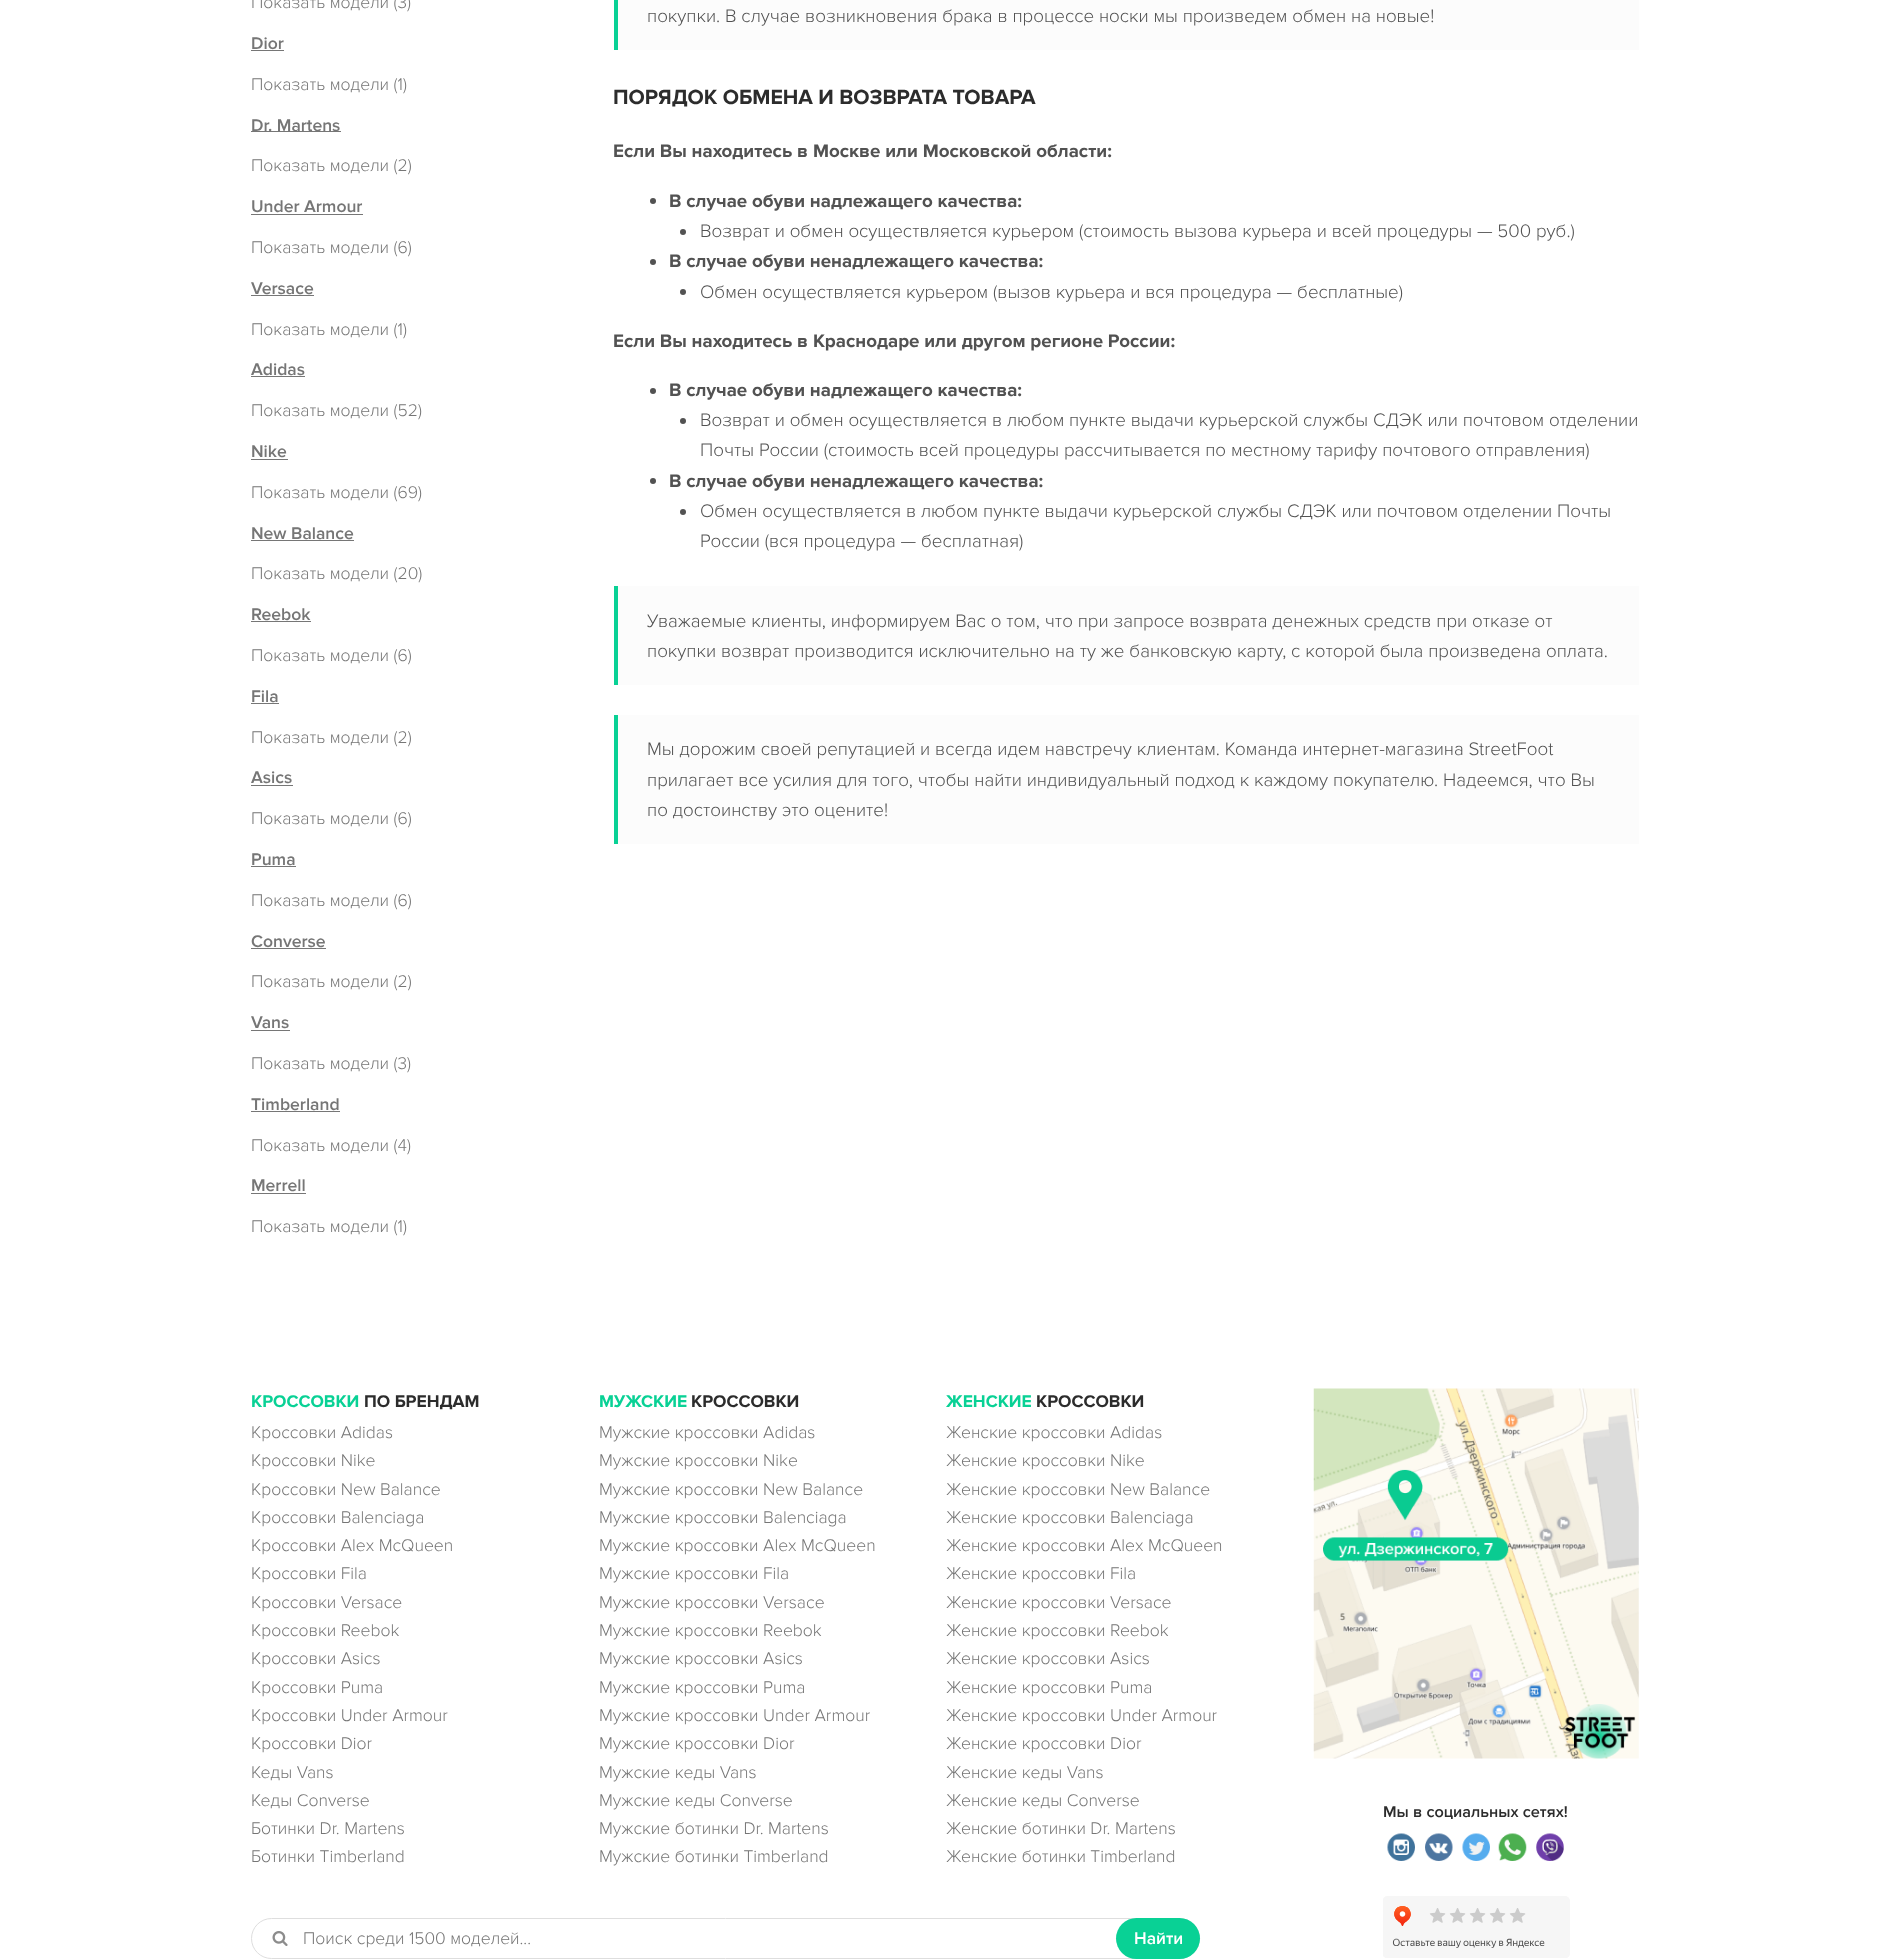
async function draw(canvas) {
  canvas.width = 1889;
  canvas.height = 1960;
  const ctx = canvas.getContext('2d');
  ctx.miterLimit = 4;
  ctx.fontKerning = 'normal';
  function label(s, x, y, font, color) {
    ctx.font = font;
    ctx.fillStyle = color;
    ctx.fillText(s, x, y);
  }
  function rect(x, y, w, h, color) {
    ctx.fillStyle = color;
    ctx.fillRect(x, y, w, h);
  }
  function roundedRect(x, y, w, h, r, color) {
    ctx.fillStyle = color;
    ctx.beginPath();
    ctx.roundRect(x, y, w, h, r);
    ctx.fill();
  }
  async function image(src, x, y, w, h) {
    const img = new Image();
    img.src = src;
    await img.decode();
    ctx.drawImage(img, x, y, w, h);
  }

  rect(0, 0, 1889, 1960, '#fff');
  label('Показать модели (3)', 251, 8, '300 17.5px Proxima Nova', '#767676');
  label('Dior', 251, 49, '600 17.5px Proxima Nova', '#767676');
  rect(251, 50, 33, 1, '#767676');
  label('Показать модели (1)', 251, 90, '300 17.5px Proxima Nova', '#767676');
  rect(251, 131, 90, 1, '#767676');
  label('Dr. Martens', 251, 131, '600 17.5px Proxima Nova', '#767676');
  label('Показать модели (2)', 251, 171, '300 17.5px Proxima Nova', '#767676');
  label('Under Armour', 251, 212, '600 17.5px Proxima Nova', '#767676');
  rect(251, 214, 112, 1, '#767676');
  label('Показать модели (6)', 251, 253, '300 17.5px Proxima Nova', '#767676');
  label('Versace', 251, 294, '600 17.5px Proxima Nova', '#767676');
  rect(251, 295, 63, 1, '#767676');
  label('Показать модели (1)', 251, 335, '300 17.5px Proxima Nova', '#767676');
  label('Adidas', 251, 375, '600 17.5px Proxima Nova', '#767676');
  rect(251, 376, 54, 1, '#767676');
  label('Показать модели (52)', 251, 416, '300 17.5px Proxima Nova', '#767676');
  label('Nike', 251, 457, '600 17.5px Proxima Nova', '#767676');
  rect(251, 459, 37, 1, '#767676');
  label('Показать модели (69)', 251, 498, '300 17.5px Proxima Nova', '#767676');
  label('New Balance', 251, 539, '600 17.5px Proxima Nova', '#767676');
  rect(251, 540, 103, 1, '#767676');
  label('Показать модели (20)', 251, 579, '300 17.5px Proxima Nova', '#767676');
  label('Reebok', 251, 620, '600 17.5px Proxima Nova', '#767676');
  rect(251, 621, 60, 1, '#767676');
  label('Показать модели (6)', 251, 661, '300 17.5px Proxima Nova', '#767676');
  label('Fila', 251, 702, '600 17.5px Proxima Nova', '#767676');
  rect(251, 703, 28, 1, '#767676');
  label('Показать модели (2)', 251, 743, '300 17.5px Proxima Nova', '#767676');
  label('Asics', 251, 783, '600 17.5px Proxima Nova', '#767676');
  rect(251, 785, 42, 1, '#767676');
  label('Показать модели (6)', 251, 824, '300 17.5px Proxima Nova', '#767676');
  label('Puma', 251, 865, '600 17.5px Proxima Nova', '#767676');
  rect(251, 866, 45, 1, '#767676');
  label('Показать модели (6)', 251, 906, '300 17.5px Proxima Nova', '#767676');
  label('Converse', 251, 947, '600 17.5px Proxima Nova', '#767676');
  rect(251, 948, 75, 1, '#767676');
  label('Показать модели (2)', 251, 987, '300 17.5px Proxima Nova', '#767676');
  label('Vans', 251, 1028, '600 17.5px Proxima Nova', '#767676');
  rect(251, 1030, 39, 1, '#767676');
  label('Показать модели (3)', 251, 1069, '300 17.5px Proxima Nova', '#767676');
  label('Timberland', 251, 1110, '600 17.5px Proxima Nova', '#767676');
  rect(251, 1111, 89, 1, '#767676');
  label('Показать модели (4)', 251, 1151, '300 17.5px Proxima Nova', '#767676');
  label('Merrell', 251, 1191, '600 17.5px Proxima Nova', '#767676');
  rect(251, 1193, 55, 1, '#767676');
  label('Показать модели (1)', 251, 1232, '300 17.5px Proxima Nova', '#767676');
  rect(618, 0, 1021, 50, '#fcfcfc');
  rect(614, 0, 4, 50, '#09d195');
  label('покупки. В случае возникновения брака в процессе носки мы произведем обмен на новые!', 647, 22, '300 18.75px Proxima Nova', '#525252');
  label('ПОРЯДОК ОБМЕНА И ВОЗВРАТА ТОВАРА', 613, 104, 'bold 21.25px Proxima Nova', '#2c2c2c');
  label('Если Вы находитесь в Москве или Московской области:', 613, 157, 'bold 18.75px Proxima Nova', '#525252');
  ctx.beginPath();
  ctx.arc(653, 201, 3, 0, 2 * Math.PI);
  ctx.fill();
  label('В случае обуви надлежащего качества:', 669, 207, 'bold 18.75px Proxima Nova', '#525252');
  ctx.beginPath();
  ctx.arc(683, 232, 3, 0, 2 * Math.PI);
  ctx.fill();
  label('Возврат и обмен осуществляется курьером (стоимость вызова курьера и всей процедуры — 500 руб.)', 700, 237, '300 18.75px Proxima Nova', '#525252');
  ctx.beginPath();
  ctx.arc(653, 262, 3, 0, 2 * Math.PI);
  ctx.fill();
  label('В случае обуви ненадлежащего качества:', 669, 267, 'bold 18.75px Proxima Nova', '#525252');
  ctx.beginPath();
  ctx.arc(683, 292, 3, 0, 2 * Math.PI);
  ctx.fill();
  label('Обмен осуществляется курьером (вызов курьера и вся процедура — бесплатные)', 700, 298, '300 18.75px Proxima Nova', '#525252');
  label('Если Вы находитесь в Краснодаре или другом регионе России:', 613, 347, 'bold 18.75px Proxima Nova', '#525252');
  ctx.beginPath();
  ctx.arc(653, 391, 3, 0, 2 * Math.PI);
  ctx.fill();
  label('В случае обуви надлежащего качества:', 669, 396, 'bold 18.75px Proxima Nova', '#525252');
  ctx.beginPath();
  ctx.arc(683, 421, 3, 0, 2 * Math.PI);
  ctx.fill();
  label('Возврат и обмен осуществляется в любом пункте выдачи курьерской службы СДЭК или почтовом отделении', 700, 426, '300 18.75px Proxima Nova', '#525252');
  label('Почты России (стоимость всей процедуры рассчитывается по местному тарифу почтового отправления)', 700, 456, '300 18.75px Proxima Nova', '#525252');
  ctx.beginPath();
  ctx.arc(653, 481, 3, 0, 2 * Math.PI);
  ctx.fill();
  label('В случае обуви ненадлежащего качества:', 669, 487, 'bold 18.75px Proxima Nova', '#525252');
  ctx.beginPath();
  ctx.arc(683, 512, 3, 0, 2 * Math.PI);
  ctx.fill();
  label('Обмен осуществляется в любом пункте выдачи курьерской службы СДЭК или почтовом отделении Почты', 700, 517, '300 18.75px Proxima Nova', '#525252');
  label('России (вся процедура — бесплатная)', 700, 547, '300 18.75px Proxima Nova', '#525252');
  rect(618, 586, 1021, 99, '#fcfcfc');
  rect(614, 586, 4, 99, '#09d195');
  label('Уважаемые клиенты, информируем Вас о том, что при запросе возврата денежных средств при отказе от', 647, 627, '300 18.75px Proxima Nova', '#525252');
  label('покупки возврат производится исключительно на ту же банковскую карту, с которой была произведена оплата.', 647, 657, '300 18.75px Proxima Nova', '#525252');
  rect(618, 715, 1021, 129, '#fcfcfc');
  rect(614, 715, 4, 129, '#09d195');
  label('Мы дорожим своей репутацией и всегда идем навстречу клиентам. Команда интернет-магазина StreetFoot', 647, 755, '300 18.75px Proxima Nova', '#525252');
  label('прилагает все усилия для того, чтобы найти индивидуальный подход к каждому покупателю. Надеемся, что Вы', 647, 786, '300 18.75px Proxima Nova', '#525252');
  label('по достоинству это оцените!', 647, 816, '300 18.75px Proxima Nova', '#525252');
  label('КРОССОВКИ', 251, 1407, 'bold 17.5px Proxima Nova', '#09d195');
  label('ПО БРЕНДАМ', 364, 1407, 'bold 17.5px Proxima Nova', '#2c2c2c');
  label('Кроссовки Adidas', 251, 1438, '300 17.5px Proxima Nova', '#767676');
  label('Кроссовки Nike', 251, 1466, '300 17.5px Proxima Nova', '#767676');
  label('Кроссовки New Balance', 251, 1495, '300 17.5px Proxima Nova', '#767676');
  label('Кроссовки Balenciaga', 251, 1523, '300 17.5px Proxima Nova', '#767676');
  label('Кроссовки Alex McQueen', 251, 1551, '300 17.5px Proxima Nova', '#767676');
  label('Кроссовки Fila', 251, 1579, '300 17.5px Proxima Nova', '#767676');
  label('Кроссовки Versace', 251, 1608, '300 17.5px Proxima Nova', '#767676');
  label('Кроссовки Reebok', 251, 1636, '300 17.5px Proxima Nova', '#767676');
  label('Кроссовки Asics', 251, 1664, '300 17.5px Proxima Nova', '#767676');
  label('Кроссовки Puma', 251, 1693, '300 17.5px Proxima Nova', '#767676');
  label('Кроссовки Under Armour', 251, 1721, '300 17.5px Proxima Nova', '#767676');
  label('Кроссовки Dior', 251, 1749, '300 17.5px Proxima Nova', '#767676');
  label('Кеды Vans', 251, 1778, '300 17.5px Proxima Nova', '#767676');
  label('Кеды Converse', 251, 1806, '300 17.5px Proxima Nova', '#767676');
  label('Ботинки Dr. Martens', 251, 1834, '300 17.5px Proxima Nova', '#767676');
  label('Ботинки Timberland', 251, 1862, '300 17.5px Proxima Nova', '#767676');
  label('МУЖСКИЕ', 599, 1407, 'bold 17.5px Proxima Nova', '#09d195');
  label('КРОССОВКИ', 691, 1407, 'bold 17.5px Proxima Nova', '#2c2c2c');
  label('Мужские кроссовки Adidas', 599, 1438, '300 17.5px Proxima Nova', '#767676');
  label('Мужские кроссовки Nike', 599, 1466, '300 17.5px Proxima Nova', '#767676');
  label('Мужские кроссовки New Balance', 599, 1495, '300 17.5px Proxima Nova', '#767676');
  label('Мужские кроссовки Balenciaga', 599, 1523, '300 17.5px Proxima Nova', '#767676');
  label('Мужские кроссовки Alex McQueen', 599, 1551, '300 17.5px Proxima Nova', '#767676');
  label('Мужские кроссовки Fila', 599, 1579, '300 17.5px Proxima Nova', '#767676');
  label('Мужские кроссовки Versace', 599, 1608, '300 17.5px Proxima Nova', '#767676');
  label('Мужские кроссовки Reebok', 599, 1636, '300 17.5px Proxima Nova', '#767676');
  label('Мужские кроссовки Asics', 599, 1664, '300 17.5px Proxima Nova', '#767676');
  label('Мужские кроссовки Puma', 599, 1693, '300 17.5px Proxima Nova', '#767676');
  label('Мужские кроссовки Under Armour', 599, 1721, '300 17.5px Proxima Nova', '#767676');
  label('Мужские кроссовки Dior', 599, 1749, '300 17.5px Proxima Nova', '#767676');
  label('Мужские кеды Vans', 599, 1778, '300 17.5px Proxima Nova', '#767676');
  label('Мужские кеды Converse', 599, 1806, '300 17.5px Proxima Nova', '#767676');
  label('Мужские ботинки Dr. Martens', 599, 1834, '300 17.5px Proxima Nova', '#767676');
  label('Мужские ботинки Timberland', 599, 1862, '300 17.5px Proxima Nova', '#767676');
  label('ЖЕНСКИЕ', 946, 1407, 'bold 17.5px Proxima Nova', '#09d195');
  label('КРОССОВКИ', 1036, 1407, 'bold 17.5px Proxima Nova', '#2c2c2c');
  label('Женские кроссовки Adidas', 946, 1438, '300 17.5px Proxima Nova', '#767676');
  label('Женские кроссовки Nike', 946, 1466, '300 17.5px Proxima Nova', '#767676');
  label('Женские кроссовки New Balance', 946, 1495, '300 17.5px Proxima Nova', '#767676');
  label('Женские кроссовки Balenciaga', 946, 1523, '300 17.5px Proxima Nova', '#767676');
  label('Женские кроссовки Alex McQueen', 946, 1551, '300 17.5px Proxima Nova', '#767676');
  label('Женские кроссовки Fila', 946, 1579, '300 17.5px Proxima Nova', '#767676');
  label('Женские кроссовки Versace', 946, 1608, '300 17.5px Proxima Nova', '#767676');
  label('Женские кроссовки Reebok', 946, 1636, '300 17.5px Proxima Nova', '#767676');
  label('Женские кроссовки Asics', 946, 1664, '300 17.5px Proxima Nova', '#767676');
  label('Женские кроссовки Puma', 946, 1693, '300 17.5px Proxima Nova', '#767676');
  label('Женские кроссовки Under Armour', 946, 1721, '300 17.5px Proxima Nova', '#767676');
  label('Женские кроссовки Dior', 946, 1749, '300 17.5px Proxima Nova', '#767676');
  label('Женские кеды Vans', 946, 1778, '300 17.5px Proxima Nova', '#767676');
  label('Женские кеды Converse', 946, 1806, '300 17.5px Proxima Nova', '#767676');
  label('Женские ботинки Dr. Martens', 946, 1834, '300 17.5px Proxima Nova', '#767676');
  label('Женские ботинки Timberland', 946, 1862, '300 17.5px Proxima Nova', '#767676');
  ctx.beginPath();
  ctx.roundRect(251.5, 1918.5, 948, 40, 20);
  ctx.strokeStyle = '#dedede';
  ctx.stroke();
  await image('assets/img1.png', 272, 1931, 16, 15);
  label('Поиск среди 1500 моделей...', 303, 1944, '300 17.5px Proxima Nova', '#767676');
  roundedRect(1116, 1918, 84, 41, 20.5, '#09d195');
  label('Найти', 1134, 1944, '600 17.5px Proxima Nova', '#fff');
  await image('assets/img2.png', 1313, 1388, 326, 371);
  label('Мы в социальных сетях!', 1383, 1817, '600 16.25px Proxima Nova', '#2c2c2c');
  await image('assets/img3.png', 1387, 1833, 28, 28);
  await image('assets/img4.png', 1425, 1833, 28, 28);
  await image('assets/img5.png', 1462, 1833, 28, 28);
  await image('assets/img6.png', 1498, 1833, 29, 28);
  await image('assets/img7.png', 1536, 1833, 28, 28);
  await image('assets/img8.png', 1383, 1896, 187, 62);
}

draw(document.querySelector('canvas'));
